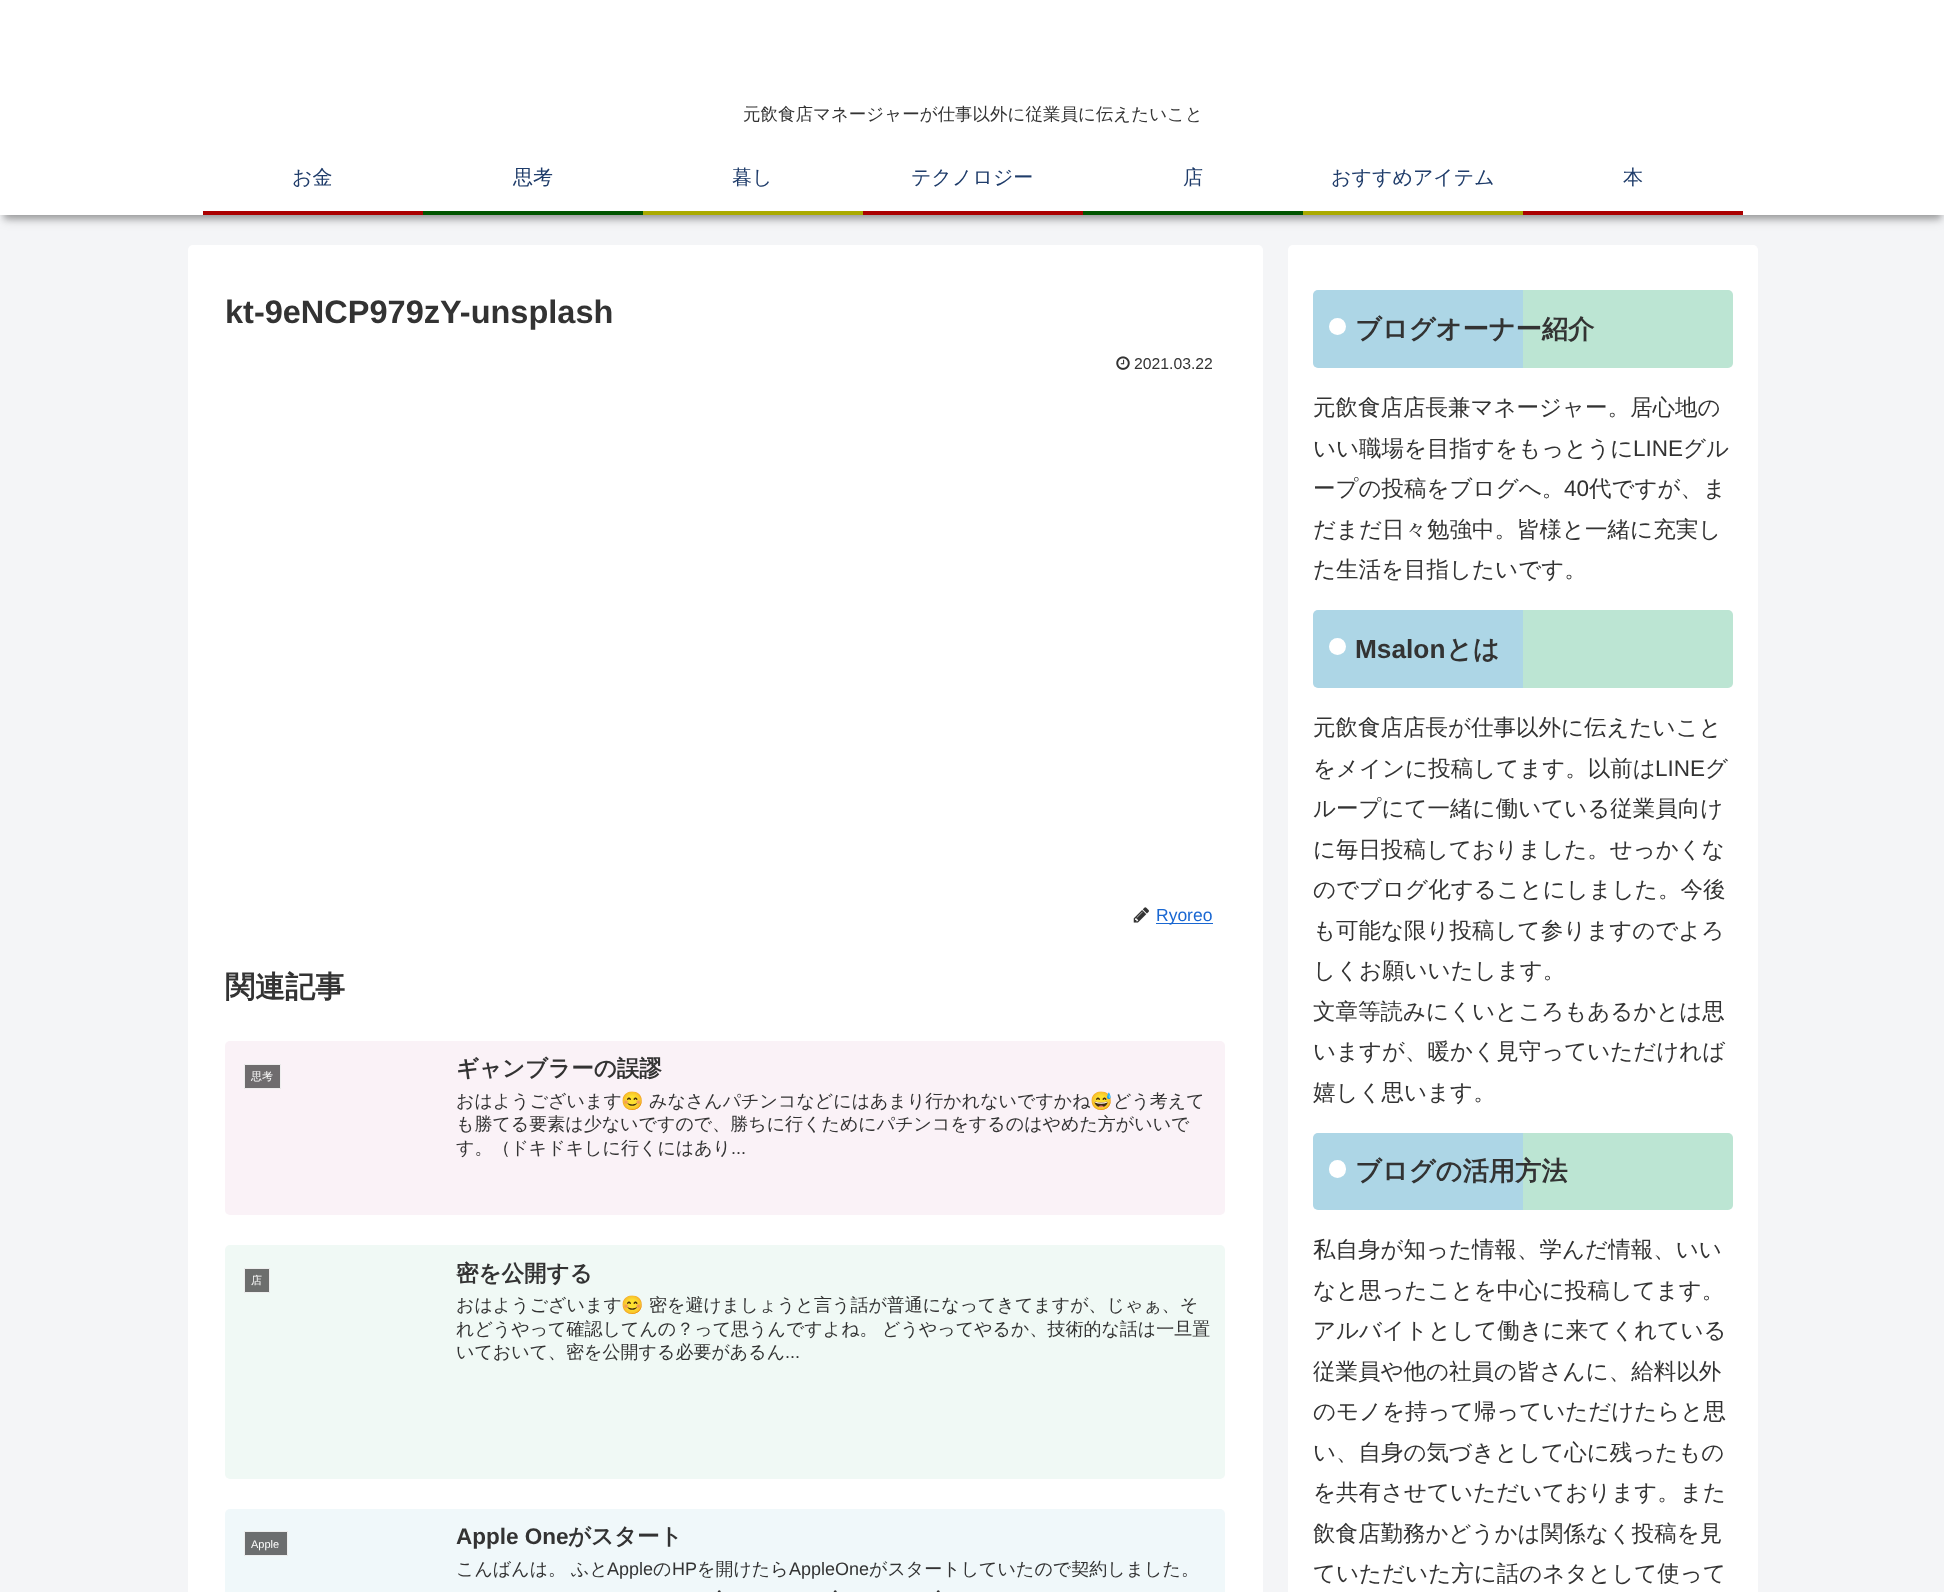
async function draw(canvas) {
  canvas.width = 1944;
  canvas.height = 1592;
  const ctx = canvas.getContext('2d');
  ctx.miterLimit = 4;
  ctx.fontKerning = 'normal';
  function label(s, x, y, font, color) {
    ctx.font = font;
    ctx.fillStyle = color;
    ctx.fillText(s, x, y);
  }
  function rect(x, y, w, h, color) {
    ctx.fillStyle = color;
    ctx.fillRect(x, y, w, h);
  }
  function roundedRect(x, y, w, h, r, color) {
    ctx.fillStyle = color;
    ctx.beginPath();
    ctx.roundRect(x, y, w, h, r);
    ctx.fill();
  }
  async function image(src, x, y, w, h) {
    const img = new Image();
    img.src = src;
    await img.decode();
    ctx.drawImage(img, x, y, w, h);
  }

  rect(0, 0, 1944, 1592, '#f4f5f7');
  ctx.fillStyle = '#0000002e';
  ctx.filter = 'blur(6px)';
  ctx.beginPath();
  ctx.rect(4, 11, 1937, 208);
  ctx.fill();
  ctx.filter = 'none';
  ctx.fillStyle = '#0000003d';
  ctx.filter = 'blur(3px)';
  ctx.beginPath();
  ctx.rect(4, 11, 1937, 208);
  ctx.fill();
  ctx.filter = 'none';
  rect(0, 0, 1944, 215, '#fff');
  label('元飲食店マネージャーが仕事以外に従業員に伝えたいこと', 743, 120, '500 17.5px WenQuanYi Zen Hei', '#333');
  rect(203, 211, 220, 4, '#a00');
  label('お金', 292, 184, '500 20px WenQuanYi Zen Hei', '#1f3c6a');
  rect(423, 211, 220, 4, '#050');
  label('思考', 513, 184, '500 20px WenQuanYi Zen Hei', '#1f3c6a');
  rect(643, 211, 220, 4, '#aa0');
  label('暮し', 732, 184, '500 20px WenQuanYi Zen Hei', '#1f3c6a');
  rect(863, 211, 220, 4, '#a00');
  label('テクノロジー', 911, 184, '500 20px WenQuanYi Zen Hei', '#1f3c6a');
  rect(1083, 211, 220, 4, '#050');
  label('店', 1183, 184, '500 20px WenQuanYi Zen Hei', '#1f3c6a');
  rect(1303, 211, 220, 4, '#aa0');
  label('おすすめアイテム', 1331, 184, '500 20px WenQuanYi Zen Hei', '#1f3c6a');
  rect(1523, 211, 220, 4, '#a00');
  label('本', 1623, 184, '500 20px WenQuanYi Zen Hei', '#1f3c6a');
  roundedRect(188, 245, 1075, 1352, 5, '#fff');
  label('kt-9eNCP979zY-unsplash', 225, 323, 'bold 32.5px Liberation Sans', '#333');
  await image('assets/img1.png', 1116, 356, 14, 14);
  label('2021.03.22', 1134, 369, '15.75px Liberation Sans', '#333');
  await image('assets/img2.png', 1133, 907, 16, 16);
  rect(1156, 923, 57, 1, '#1967d2');
  label('Ryoreo', 1156, 921, '17.5px Liberation Sans', '#1967d2');
  label('関連記事', 225, 997, 'bold 30px WenQuanYi Zen Hei', '#333');
  roundedRect(225, 1041, 1000, 174, 5, '#faf2f7');
  ctx.fillStyle = '#6f6c6e';
  ctx.beginPath();
  ctx.rect(244.5, 1064.5, 36, 24);
  ctx.fill();
  ctx.strokeStyle = '#eee';
  ctx.stroke();
  label('思考', 251, 1080, '500 11px WenQuanYi Zen Hei', '#fff');
  label('ギャンブラーの誤謬', 456, 1076, 'bold 22.5px WenQuanYi Zen Hei', '#333');
  label('おはようございます', 456, 1107, '500 18px WenQuanYi Zen Hei', '#333');
  label('😊', 621, 1107, '18px Noto Color Emoji', '#333');
  label('みなさんパチンコなどにはあまり行かれないですかね', 649, 1107, '500 18px WenQuanYi Zen Hei', '#333');
  label('😅', 1090, 1107, '18px Noto Color Emoji', '#333');
  label('どう考えて', 1113, 1107, '500 18px WenQuanYi Zen Hei', '#333');
  label('も勝てる要素は少ないですので、勝ちに行くためにパチンコをするのはやめた方がいいで', 456, 1130, '500 18px WenQuanYi Zen Hei', '#333');
  label('す。（ドキドキしに行くにはあり', 456, 1154, '500 18px WenQuanYi Zen Hei', '#333');
  label('...', 731, 1154, '18px Liberation Sans', '#333');
  roundedRect(225, 1245, 1000, 234, 5, '#f0f9f5');
  ctx.fillStyle = '#6c6e6d';
  ctx.beginPath();
  ctx.rect(244.5, 1268.5, 25, 24);
  ctx.fill();
  ctx.stroke();
  label('店', 251, 1284, '500 11px WenQuanYi Zen Hei', '#fff');
  label('密を公開する', 456, 1281, 'bold 22.5px WenQuanYi Zen Hei', '#333');
  label('おはようございます', 456, 1311, '500 18px WenQuanYi Zen Hei', '#333');
  label('😊', 621, 1311, '18px Noto Color Emoji', '#333');
  label('密を避けましょうと言う話が普通になってきてますが、じゃぁ、そ', 649, 1311, '500 18px WenQuanYi Zen Hei', '#333');
  label('れどうやって確認してんの？って思うんですよね。', 456, 1335, '500 18px WenQuanYi Zen Hei', '#333');
  label('どうやってやるか、技術的な話は一旦置', 882, 1335, '500 18px WenQuanYi Zen Hei', '#333');
  label('いておいて、密を公開する必要があるん', 456, 1358, '500 18px WenQuanYi Zen Hei', '#333');
  label('...', 785, 1358, '18px Liberation Sans', '#333');
  roundedRect(225, 1509, 1000, 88, 5, '#f0f8fa');
  ctx.fillStyle = '#6c6e6f';
  ctx.beginPath();
  ctx.rect(244.5, 1531.5, 43, 24);
  ctx.fill();
  ctx.stroke();
  label('Apple', 251, 1548, '11px Liberation Sans', '#fff');
  label('Apple One', 456, 1544, 'bold 22.5px Liberation Sans', '#333');
  label('がスタート', 568, 1544, 'bold 22.5px WenQuanYi Zen Hei', '#333');
  label('こんばんは。', 456, 1575, '500 18px WenQuanYi Zen Hei', '#333');
  label('ふと', 571, 1575, '500 18px WenQuanYi Zen Hei', '#333');
  label('Apple', 607, 1575, '18px Liberation Sans', '#333');
  label('の', 653, 1575, '500 18px WenQuanYi Zen Hei', '#333');
  label('HP', 672, 1575, '18px Liberation Sans', '#333');
  label('を開けたら', 697, 1575, '500 18px WenQuanYi Zen Hei', '#333');
  label('AppleOne', 789, 1575, '18px Liberation Sans', '#333');
  label('がスタートしていたので契約しました。', 869, 1575, '500 18px WenQuanYi Zen Hei', '#333');
  label('・', 710, 1598, '500 18px WenQuanYi Zen Hei', '#333');
  label('・', 826, 1598, '500 18px WenQuanYi Zen Hei', '#333');
  label('・', 929, 1598, '500 18px WenQuanYi Zen Hei', '#333');
  roundedRect(1288, 245, 470, 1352, 5, '#fff');
  roundedRect(1313, 290, 420, 78, 5, '#f5f6f7');
  ctx.fillStyle = '#088cc04d';
  ctx.beginPath();
  ctx.roundRect(1313, 290, 210, 78, [5, 0, 0, 5]);
  ctx.fill();
  ctx.fillStyle = '#39bc804d';
  ctx.beginPath();
  ctx.roundRect(1523, 290, 210, 78, [0, 5, 5, 0]);
  ctx.fill();
  ctx.fillStyle = '#fff';
  ctx.beginPath();
  ctx.arc(1337.5, 326.5, 8.5, 0, 2 * Math.PI);
  ctx.fill();
  label('ブログオーナー紹介', 1355, 338, 'bold 26.25px WenQuanYi Zen Hei', '#333');
  label('元飲食店店長兼マネージャー。居心地の', 1313, 415, '500 22.5px WenQuanYi Zen Hei', '#333');
  label('いい職場を目指すをもっとうに', 1313, 456, '500 22.5px WenQuanYi Zen Hei', '#333');
  label('LINE', 1633, 456, '22.5px Liberation Sans', '#333');
  label('グル', 1683, 456, '500 22.5px WenQuanYi Zen Hei', '#333');
  label('ープの投稿をブログへ。', 1313, 496, '500 22.5px WenQuanYi Zen Hei', '#333');
  label('40', 1564, 496, '22.5px Liberation Sans', '#333');
  label('代ですが、ま', 1589, 496, '500 22.5px WenQuanYi Zen Hei', '#333');
  label('だまだ日々勉強中。皆様と一緒に充実し', 1313, 537, '500 22.5px WenQuanYi Zen Hei', '#333');
  label('た生活を目指したいです。', 1313, 577, '500 22.5px WenQuanYi Zen Hei', '#333');
  roundedRect(1313, 610, 420, 78, 5, '#f5f6f7');
  ctx.fillStyle = '#088cc04d';
  ctx.beginPath();
  ctx.roundRect(1313, 610, 210, 78, [5, 0, 0, 5]);
  ctx.fill();
  ctx.fillStyle = '#39bc804d';
  ctx.beginPath();
  ctx.roundRect(1523, 610, 210, 78, [0, 5, 5, 0]);
  ctx.fill();
  ctx.fillStyle = '#fff';
  ctx.beginPath();
  ctx.arc(1337.5, 646.5, 8.5, 0, 2 * Math.PI);
  ctx.fill();
  label('Msalon', 1355, 658, 'bold 26.25px Liberation Sans', '#333');
  label('とは', 1446, 658, 'bold 26.25px WenQuanYi Zen Hei', '#333');
  label('元飲食店店長が仕事以外に伝えたいこと', 1313, 735, '500 22.5px WenQuanYi Zen Hei', '#333');
  label('をメインに投稿してます。以前は', 1313, 776, '500 22.5px WenQuanYi Zen Hei', '#333');
  label('LINE', 1655, 776, '22.5px Liberation Sans', '#333');
  label('グ', 1705, 776, '500 22.5px WenQuanYi Zen Hei', '#333');
  label('ループにて一緒に働いている従業員向け', 1313, 816, '500 22.5px WenQuanYi Zen Hei', '#333');
  label('に毎日投稿しておりました。せっかくな', 1313, 857, '500 22.5px WenQuanYi Zen Hei', '#333');
  label('のでブログ化することにしました。今後', 1313, 897, '500 22.5px WenQuanYi Zen Hei', '#333');
  label('も可能な限り投稿して参りますのでよろ', 1313, 938, '500 22.5px WenQuanYi Zen Hei', '#333');
  label('しくお願いいたします。', 1313, 978, '500 22.5px WenQuanYi Zen Hei', '#333');
  label('文章等読みにくいところもあるかとは思', 1313, 1019, '500 22.5px WenQuanYi Zen Hei', '#333');
  label('いますが、暖かく見守っていただければ', 1313, 1059, '500 22.5px WenQuanYi Zen Hei', '#333');
  label('嬉しく思います。', 1313, 1100, '500 22.5px WenQuanYi Zen Hei', '#333');
  roundedRect(1313, 1133, 420, 77, 5, '#f5f6f7');
  ctx.fillStyle = '#088cc04d';
  ctx.beginPath();
  ctx.roundRect(1313, 1133, 210, 77, [5, 0, 0, 5]);
  ctx.fill();
  ctx.fillStyle = '#39bc804d';
  ctx.beginPath();
  ctx.roundRect(1523, 1133, 210, 77, [0, 5, 5, 0]);
  ctx.fill();
  roundedRect(1329, 1160, 17, 18, 8.5, '#fff');
  label('ブログの活用方法', 1355, 1180, 'bold 26.25px WenQuanYi Zen Hei', '#333');
  label('私自身が知った情報、学んだ情報、いい', 1313, 1257, '500 22.5px WenQuanYi Zen Hei', '#333');
  label('なと思ったことを中心に投稿してます。', 1313, 1298, '500 22.5px WenQuanYi Zen Hei', '#333');
  label('アルバイトとして働きに来てくれている', 1313, 1338, '500 22.5px WenQuanYi Zen Hei', '#333');
  label('従業員や他の社員の皆さんに、給料以外', 1313, 1379, '500 22.5px WenQuanYi Zen Hei', '#333');
  label('のモノを持って帰っていただけたらと思', 1313, 1419, '500 22.5px WenQuanYi Zen Hei', '#333');
  label('い、自身の気づきとして心に残ったもの', 1313, 1460, '500 22.5px WenQuanYi Zen Hei', '#333');
  label('を共有させていただいております。また', 1313, 1500, '500 22.5px WenQuanYi Zen Hei', '#333');
  label('飲食店勤務かどうかは関係なく投稿を見', 1313, 1541, '500 22.5px WenQuanYi Zen Hei', '#333');
  label('ていただいた方に話のネタとして使って', 1313, 1581, '500 22.5px WenQuanYi Zen Hei', '#333');
}

draw(document.querySelector('canvas'));
